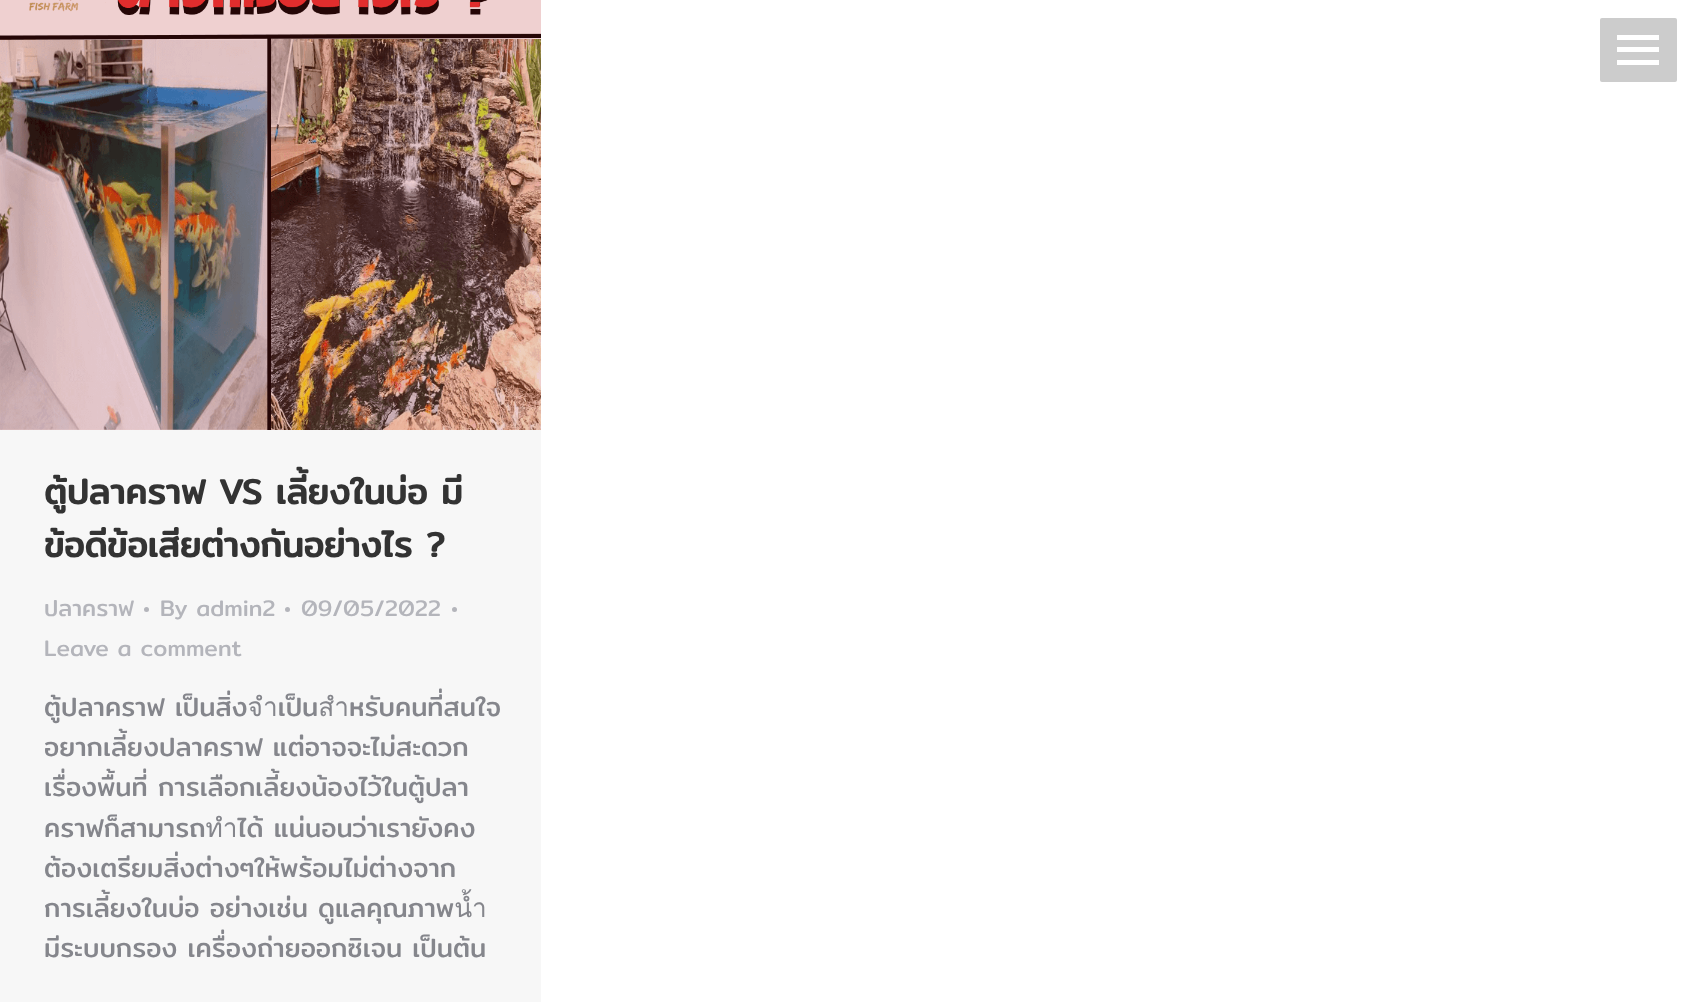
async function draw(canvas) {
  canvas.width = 1694;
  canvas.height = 1002;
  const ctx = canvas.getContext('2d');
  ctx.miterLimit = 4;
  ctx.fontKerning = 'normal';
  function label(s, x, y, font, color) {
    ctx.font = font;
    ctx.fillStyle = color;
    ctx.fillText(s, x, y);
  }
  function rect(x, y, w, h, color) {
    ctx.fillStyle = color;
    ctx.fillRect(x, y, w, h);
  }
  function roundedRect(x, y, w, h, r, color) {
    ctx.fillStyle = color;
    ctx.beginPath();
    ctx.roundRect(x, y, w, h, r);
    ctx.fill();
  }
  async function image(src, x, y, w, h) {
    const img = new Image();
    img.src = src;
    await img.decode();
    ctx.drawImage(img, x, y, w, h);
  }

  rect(0, 0, 1694, 1002, '#fff');
  roundedRect(1600, 18, 77, 64, 2, '#ccc');
  rect(1617, 35, 42, 5, '#fff');
  rect(1617, 47, 42, 5, '#fff');
  rect(1617, 60, 42, 5, '#fff');
  rect(0, 430, 541, 572, '#f7f7f7');
  await image('assets/img1.png', 0, 0, 541, 430);
  label('ตู้ปลาคราฟ VS เลี้ยงในบ่อ มี', 44, 504, 'bold 35px Mitr', '#333');
  label('ข้อดีข้อเสียต่างกันอย่างไร ?', 44, 557, 'bold 35px Mitr', '#333');
  label('ปลาคราฟ', 44, 616, '22.75px Mitr', '#b4b5bb');
  ctx.beginPath();
  ctx.arc(146.5, 609.5, 2.5, 0, 2 * Math.PI);
  ctx.fill();
  label('By admin2', 160, 616, '22.75px Mitr', '#b4b5bb');
  ctx.beginPath();
  ctx.arc(287.5, 609.5, 2.5, 0, 2 * Math.PI);
  ctx.fill();
  label('09/05/2022', 301, 616, '22.75px Mitr', '#b4b5bb');
  ctx.beginPath();
  ctx.arc(454.5, 609.5, 2.5, 0, 2 * Math.PI);
  ctx.fill();
  label('Leave a comment', 44, 656, '22.75px Mitr', '#b4b5bb');
  label('ตู้ปลาคราฟ เป็นสิ่งจำเป็นสำหรับคนที่สนใจ', 44, 716, '26.25px Mitr', '#85868c');
  label('อยากเลี้ยงปลาคราฟ แต่อาจจะไม่สะดวก', 44, 756, '26.25px Mitr', '#85868c');
  label('เรื่องพื้นที่ การเลือกเลี้ยงน้องไว้ในตู้ปลา', 44, 796, '26.25px Mitr', '#85868c');
  label('คราฟก็สามารถทำได้ แน่นอนว่าเรายังคง', 44, 837, '26.25px Mitr', '#85868c');
  label('ต้องเตรียมสิ่งต่างๆให้พร้อมไม่ต่างจาก', 44, 877, '26.25px Mitr', '#85868c');
  label('การเลี้ยงในบ่อ อย่างเช่น ดูแลคุณภาพน้ำ', 44, 917, '26.25px Mitr', '#85868c');
  label('มีระบบกรอง เครื่องถ่ายออกซิเจน เป็นต้น', 44, 957, '26.25px Mitr', '#85868c');
}

draw(document.querySelector('canvas'));
